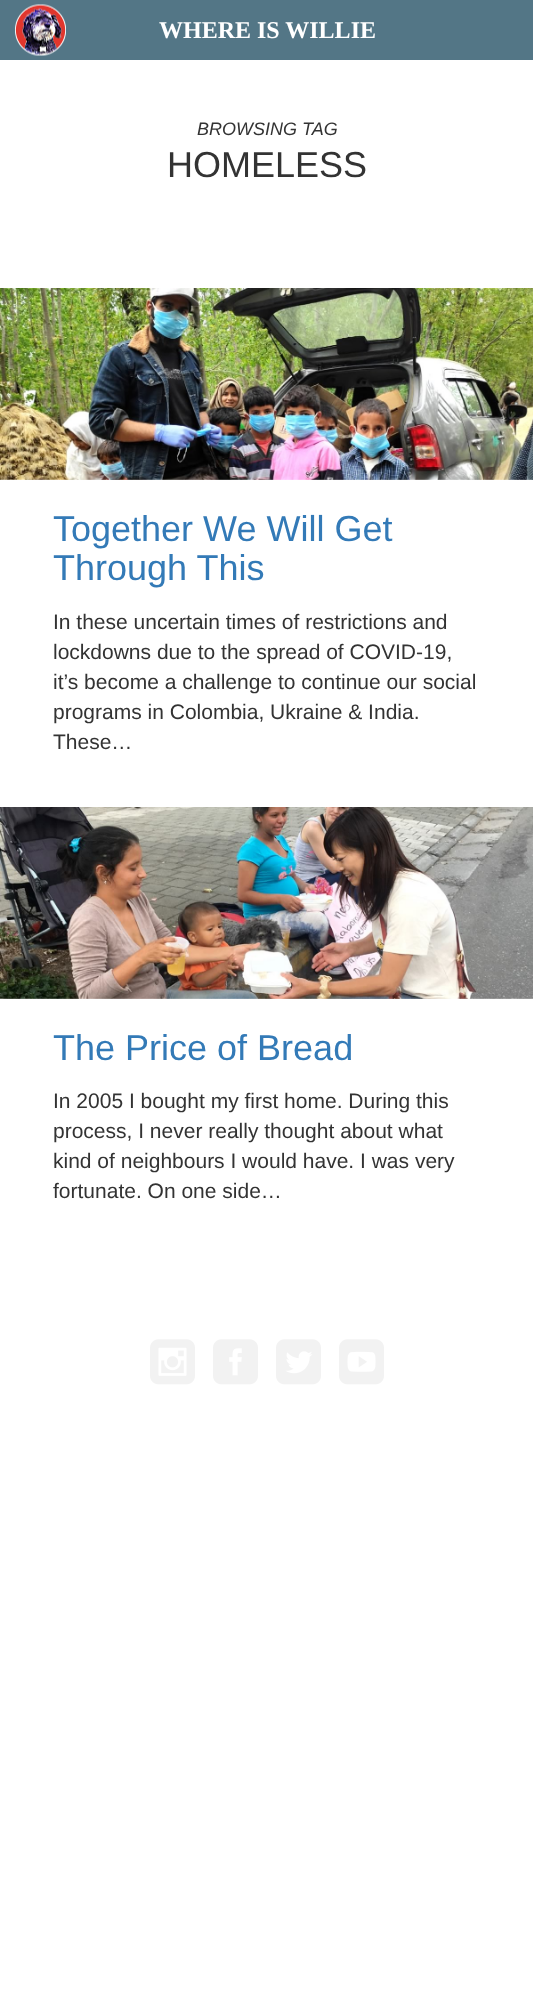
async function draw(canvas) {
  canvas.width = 533;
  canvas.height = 1998;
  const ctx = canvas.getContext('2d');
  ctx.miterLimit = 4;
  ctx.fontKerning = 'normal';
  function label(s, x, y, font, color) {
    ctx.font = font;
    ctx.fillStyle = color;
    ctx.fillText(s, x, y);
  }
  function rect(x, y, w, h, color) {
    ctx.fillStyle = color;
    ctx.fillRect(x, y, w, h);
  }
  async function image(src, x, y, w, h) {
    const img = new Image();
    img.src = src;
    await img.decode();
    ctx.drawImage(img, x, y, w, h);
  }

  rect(0, 0, 533, 1998, '#fff');
  rect(0, 0, 533, 60, '#537686');
  await image('assets/img1.png', 15, 4, 51, 52);
  label('WHERE IS WILLIE', 159, 38, 'bold 24px Liberation Serif', '#fff');
  label('BROWSING TAG', 197, 135, 'italic 18px Liberation Sans', '#333');
  label('HOMELESS', 167, 177, '36px Liberation Sans', '#333');
  await image('assets/img2.png', 0, 288, 533, 192);
  label('Together We Will Get', 53, 541, '36px Liberation Sans', '#337ab7');
  label('Through This', 53, 580, '36px Liberation Sans', '#337ab7');
  label('In these uncertain times of restrictions and', 53, 629, '21px Liberation Sans', '#333');
  label('lockdowns due to the spread of COVID-19,', 53, 659, '21px Liberation Sans', '#333');
  label('it’s become a challenge to continue our social', 53, 689, '21px Liberation Sans', '#333');
  label('programs in Colombia, Ukraine & India.', 53, 719, '21px Liberation Sans', '#333');
  label('These…', 53, 749, '21px Liberation Sans', '#333');
  await image('assets/img3.png', 0, 807, 533, 192);
  label('The Price of Bread', 53, 1060, '36px Liberation Sans', '#337ab7');
  label('In 2005 I bought my first home. During this', 53, 1108, '21px Liberation Sans', '#333');
  label('process, I never really thought about what', 53, 1138, '21px Liberation Sans', '#333');
  label('kind of neighbours I would have. I was very', 53, 1168, '21px Liberation Sans', '#333');
  label('fortunate. On one side…', 53, 1198, '21px Liberation Sans', '#333');
  await image('assets/img4.png', 150, 1339, 45, 46);
  await image('assets/img5.png', 213, 1339, 45, 46);
  await image('assets/img6.png', 276, 1339, 45, 46);
  await image('assets/img7.png', 339, 1339, 45, 46);
}

draw(document.querySelector('canvas'));
